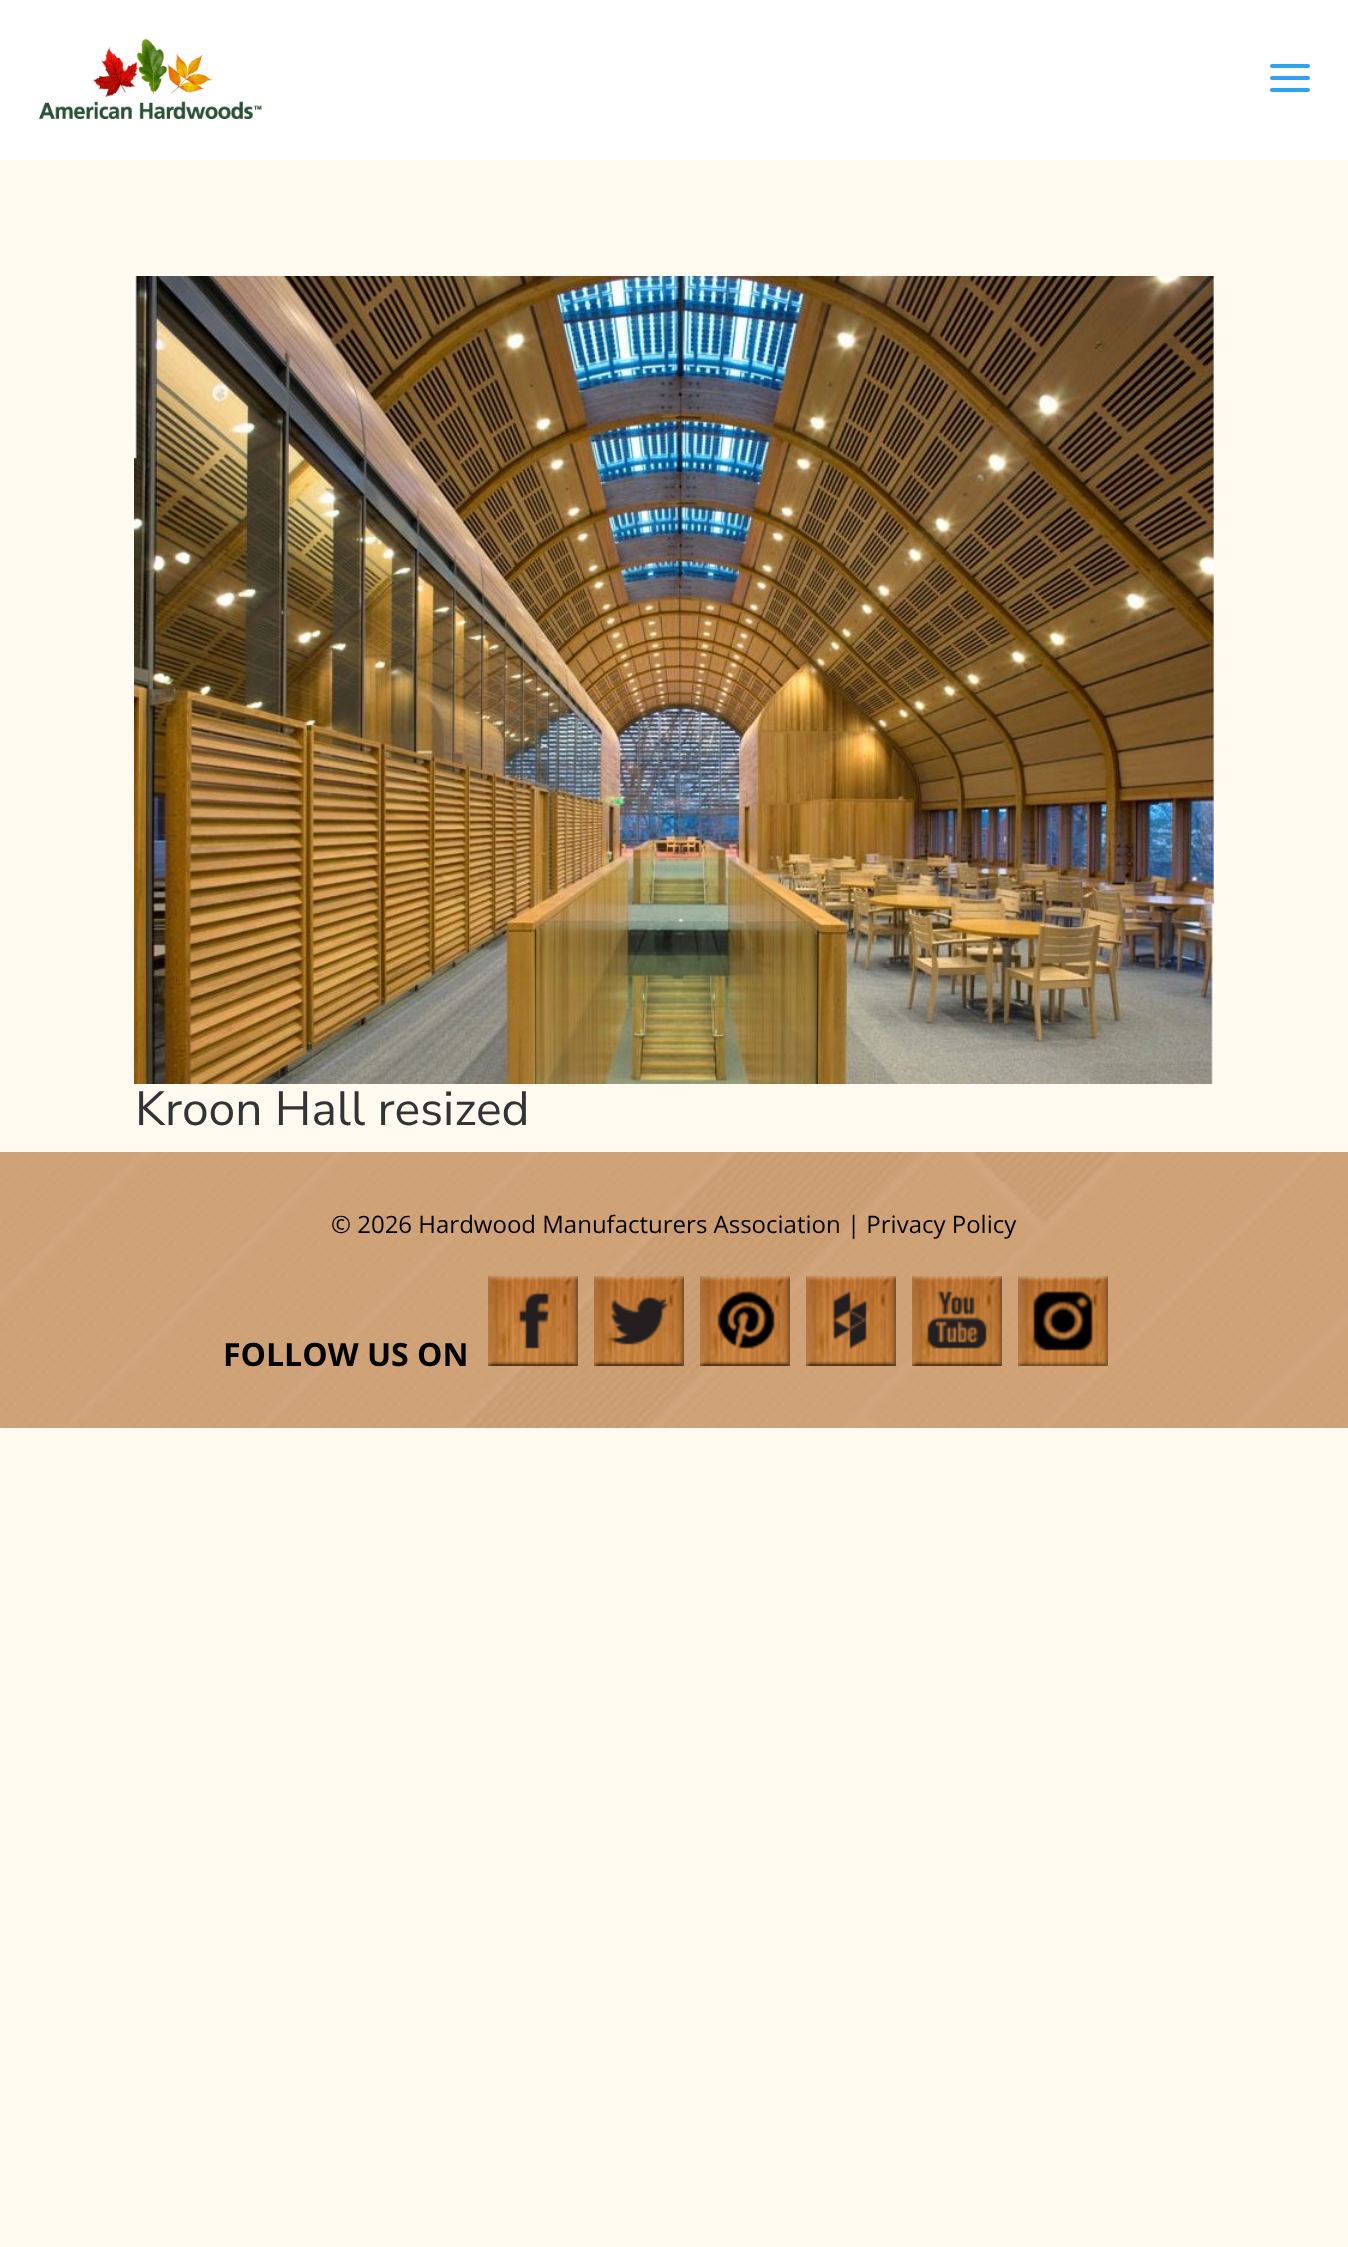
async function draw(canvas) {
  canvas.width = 1348;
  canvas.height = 2247;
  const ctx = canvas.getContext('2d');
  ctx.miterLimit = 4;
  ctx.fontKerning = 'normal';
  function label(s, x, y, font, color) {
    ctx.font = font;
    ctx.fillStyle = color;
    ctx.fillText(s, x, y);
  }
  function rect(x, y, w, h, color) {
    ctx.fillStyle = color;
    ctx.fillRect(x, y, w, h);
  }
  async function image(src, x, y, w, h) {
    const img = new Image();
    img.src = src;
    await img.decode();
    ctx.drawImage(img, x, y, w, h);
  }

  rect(0, 0, 1348, 2247, '#fffaf0');
  rect(0, 0, 1348, 160, '#fff');
  await image('assets/img1.png', 39, 38, 223, 81);
  await image('assets/img2.png', 1270, 64, 40, 28);
  await image('assets/img3.png', 134, 276, 1080, 808);
  label('Kroon Hall resized', 135, 1125, '48px Nunito Sans', '#333');
  await image('assets/img4.png', 0, 1152, 1348, 276);
  label('© 2026 Hardwood Manufacturers Association | Privacy Policy', 331, 1233, '24px Open Sans', '#000');
  label('FOLLOW US ON', 223, 1366, 'bold 32px Open Sans', '#000');
  await image('assets/img5.png', 488, 1276, 90, 90);
  await image('assets/img6.png', 594, 1276, 90, 90);
  await image('assets/img7.png', 700, 1276, 90, 90);
  await image('assets/img8.png', 806, 1276, 90, 90);
  await image('assets/img9.png', 912, 1276, 90, 90);
  await image('assets/img10.png', 1018, 1276, 90, 90);
}

draw(document.querySelector('canvas'));
